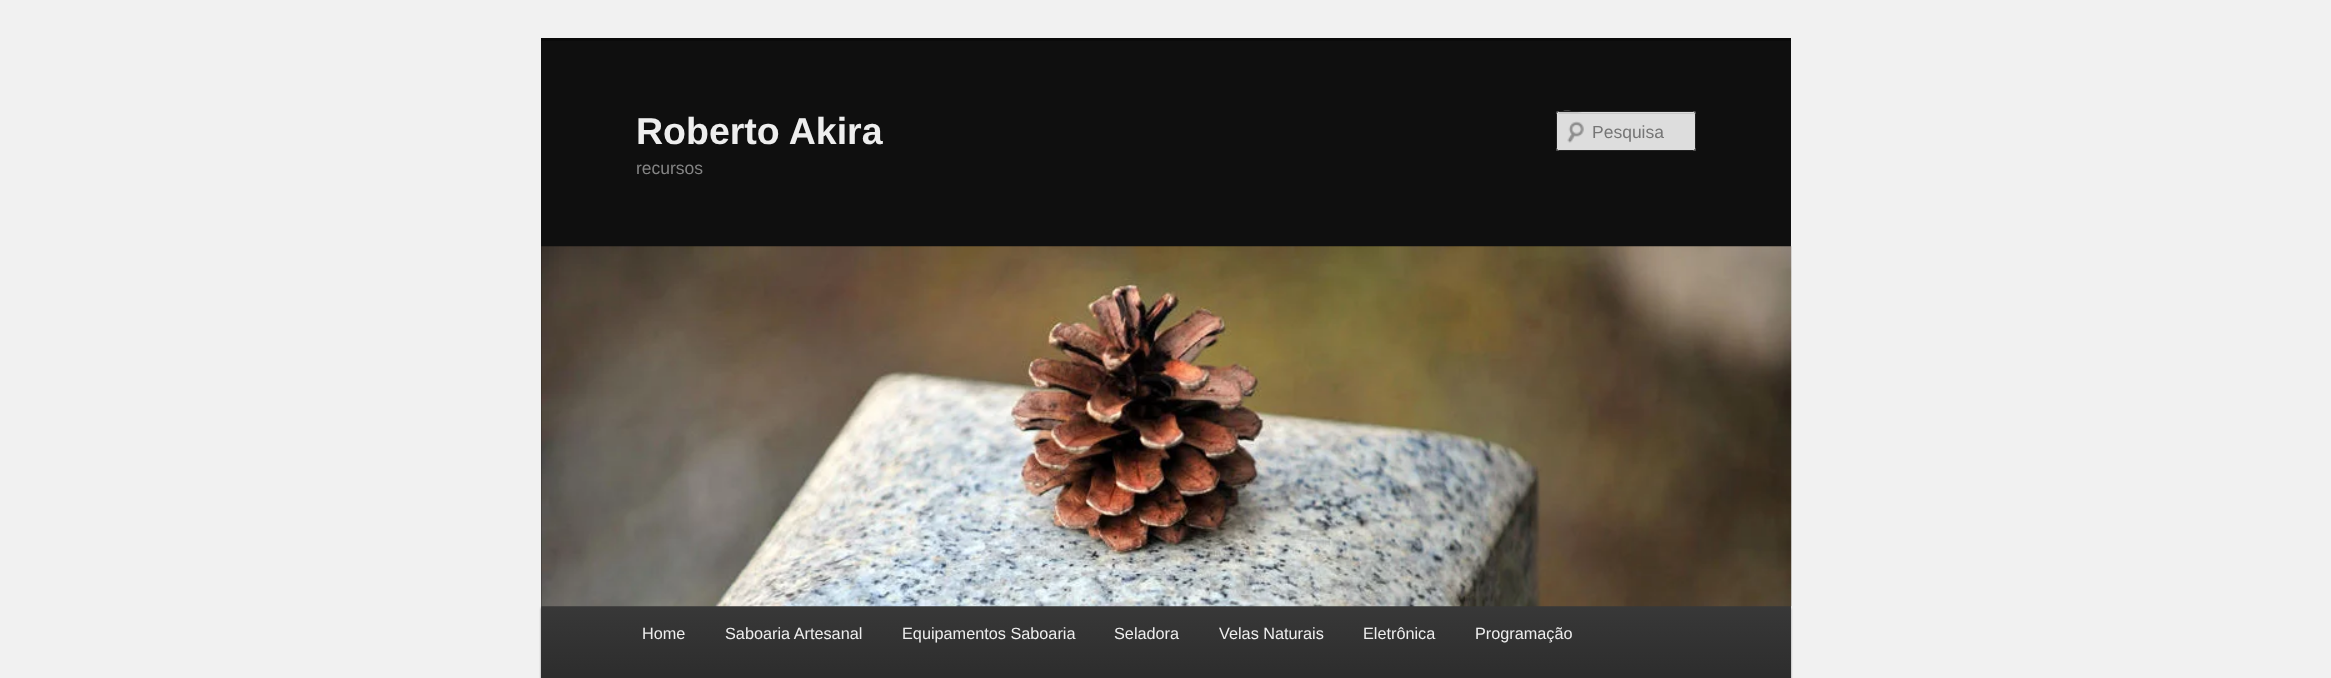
async function draw(canvas) {
  canvas.width = 2331;
  canvas.height = 678;
  const ctx = canvas.getContext('2d');
  ctx.miterLimit = 4;
  ctx.fontKerning = 'normal';
  function label(s, x, y, font, color) {
    ctx.font = font;
    ctx.fillStyle = color;
    ctx.fillText(s, x, y);
  }
  function rect(x, y, w, h, color) {
    ctx.fillStyle = color;
    ctx.fillRect(x, y, w, h);
  }
  function roundedRect(x, y, w, h, r, color) {
    ctx.fillStyle = color;
    ctx.beginPath();
    ctx.roundRect(x, y, w, h, r);
    ctx.fill();
  }
  async function image(src, x, y, w, h) {
    const img = new Image();
    img.src = src;
    await img.decode();
    ctx.drawImage(img, x, y, w, h);
  }
  let gradient, path;

  rect(0, 0, 2331, 678, '#f1f1f1');
  rect(541, 41, 1250, 565, '#0f0f0f');
  rect(541, 38, 1250, 3, '#0a0a0a');
  label('Roberto Akira', 636, 144, 'bold 37.5px Liberation Sans', '#eee');
  label('recursos', 636, 174, '17.5px Liberation Sans', '#858585');
  roundedRect(1556, 111, 140, 40, 2.5, '#ddd');
  await image('assets/img1.png', 1567, 121, 17, 22);
  ctx.fillStyle = '#c7c7c7';
  path = new Path2D('M1559 114H1694L1695 115V113H1582C1581 113 1558 107 1558 115C1558 114 1558 114 1559 114Z');
  ctx.fill(path);
  ctx.beginPath();
  ctx.roundRect(1556.5, 111.5, 139, 39, 2);
  ctx.strokeStyle = '#222';
  ctx.stroke();
  label('Pesquisa', 1592, 138, '17.5px Liberation Sans', '#757575');
  ctx.fillStyle = '#00000066';
  ctx.filter = 'blur(1px)';
  ctx.beginPath();
  ctx.rect(541, 608, 1250, 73);
  ctx.fill();
  ctx.filter = 'none';
  gradient = ctx.createLinearGradient(1166, 606, 1166, 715);
  gradient.addColorStop(0, '#383838');
  gradient.addColorStop(1, '#272727');
  ctx.fillStyle = gradient;
  ctx.fillRect(541, 606, 1250, 72);
  await image('assets/img2.png', 541, 246, 1251, 361);
  label('Home', 642, 639, '16.25px Liberation Sans', '#eee');
  label('Saboaria Artesanal', 725, 639, '16.25px Liberation Sans', '#eee');
  label('Equipamentos Saboaria', 902, 639, '16.25px Liberation Sans', '#eee');
  label('Seladora', 1114, 639, '16.25px Liberation Sans', '#eee');
  label('Velas Naturais', 1219, 639, '16.25px Liberation Sans', '#eee');
  label('Eletrônica', 1363, 639, '16.25px Liberation Sans', '#eee');
  label('Programação', 1475, 639, '16.25px Liberation Sans', '#eee');
}

draw(document.querySelector('canvas'));
